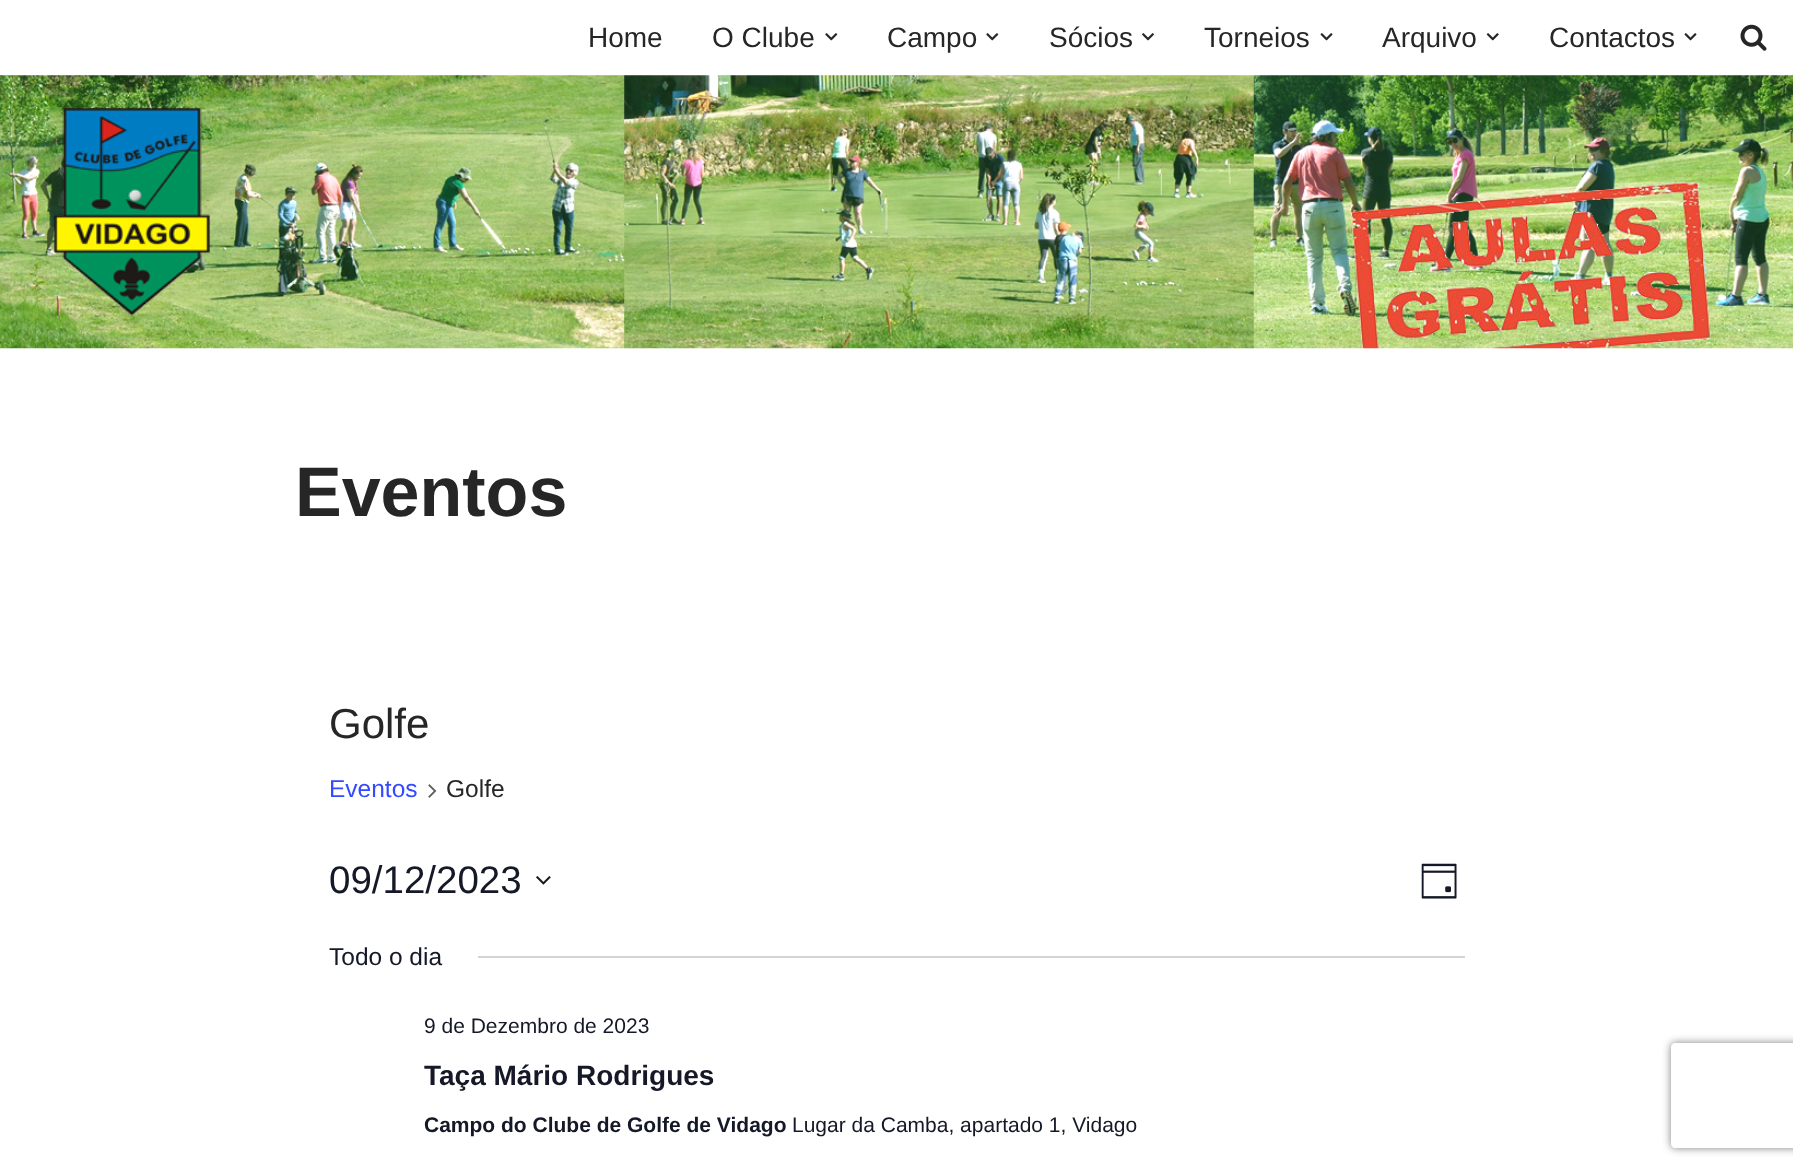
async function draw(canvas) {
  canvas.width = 1793;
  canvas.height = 1172;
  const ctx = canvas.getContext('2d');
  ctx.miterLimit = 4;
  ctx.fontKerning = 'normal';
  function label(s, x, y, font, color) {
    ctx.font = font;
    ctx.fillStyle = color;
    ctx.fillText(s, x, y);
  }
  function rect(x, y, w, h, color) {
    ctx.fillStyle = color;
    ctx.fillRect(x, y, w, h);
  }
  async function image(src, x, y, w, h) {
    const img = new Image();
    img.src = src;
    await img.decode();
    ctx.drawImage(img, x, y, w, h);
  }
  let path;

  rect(0, 0, 1793, 1172, '#fff');
  label('Home', 588, 47, '28px Liberation Sans', '#272626');
  label('O Clube', 712, 47, '28px Liberation Sans', '#272626');
  await image('assets/img1.png', 825, 33, 13, 8);
  label('Campo', 887, 47, '28px Liberation Sans', '#272626');
  await image('assets/img1.png', 986, 33, 13, 8);
  label('Sócios', 1049, 47, '28px Liberation Sans', '#272626');
  await image('assets/img2.png', 1142, 33, 12, 8);
  label('Torneios', 1204, 47, '28px Liberation Sans', '#272626');
  await image('assets/img3.png', 1320, 33, 13, 8);
  label('Arquivo', 1382, 47, '28px Liberation Sans', '#272626');
  await image('assets/img4.png', 1486, 33, 13, 8);
  label('Contactos', 1549, 47, '28px Liberation Sans', '#272626');
  await image('assets/img3.png', 1684, 33, 13, 8);
  await image('assets/img5.png', 1740, 24, 27, 27);
  await image('assets/img6.png', 0, 75, 1793, 274);
  await image('assets/img7.png', 54, 108, 156, 208);
  label('Eventos', 295, 516, 'bold 70px Liberation Sans', '#272626');
  label('Golfe', 329, 738, '42px Liberation Sans', '#272626');
  label('Eventos', 329, 797, '24.5px Liberation Sans', '#334aff');
  await image('assets/img8.png', 428, 784, 9, 14);
  label('Golfe', 446, 797, '24.5px Liberation Sans', '#272626');
  label('09/12/2023', 329, 893, '38.5px Liberation Sans', '#141827');
  await image('assets/img9.png', 536, 876, 15, 9);
  await image('assets/img10.png', 1421, 863, 36, 36);
  label('Todo o dia', 329, 965, '24.5px Liberation Sans', '#141827');
  rect(478, 956, 987, 2, '#d5d5d5');
  label('9 de Dezembro de 2023', 424, 1033, '21px Liberation Sans', '#141827');
  label('Taça Mário Rodrigues', 424, 1085, 'bold 28px Liberation Sans', '#141827');
  label('Campo do Clube de Golfe de Vidago', 424, 1132, 'bold 21px Liberation Sans', '#141827');
  label('Lugar da Camba, apartado 1, Vidago', 792, 1132, '21px Liberation Sans', '#141827');
  ctx.save();
  path = new Path2D('M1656 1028H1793V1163H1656ZM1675 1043H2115C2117 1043 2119 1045 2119 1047V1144C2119 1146 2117 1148 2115 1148H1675C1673 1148 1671 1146 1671 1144V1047C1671 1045 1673 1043 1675 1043Z');
  ctx.clip(path, 'evenodd');
  ctx.fillStyle = '#808080';
  ctx.filter = 'blur(4.5px)';
  ctx.beginPath();
  ctx.roundRect(1671, 1043, 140, 105, 4);
  ctx.fill();
  ctx.filter = 'none';
  ctx.restore();
}

draw(document.querySelector('canvas'));
